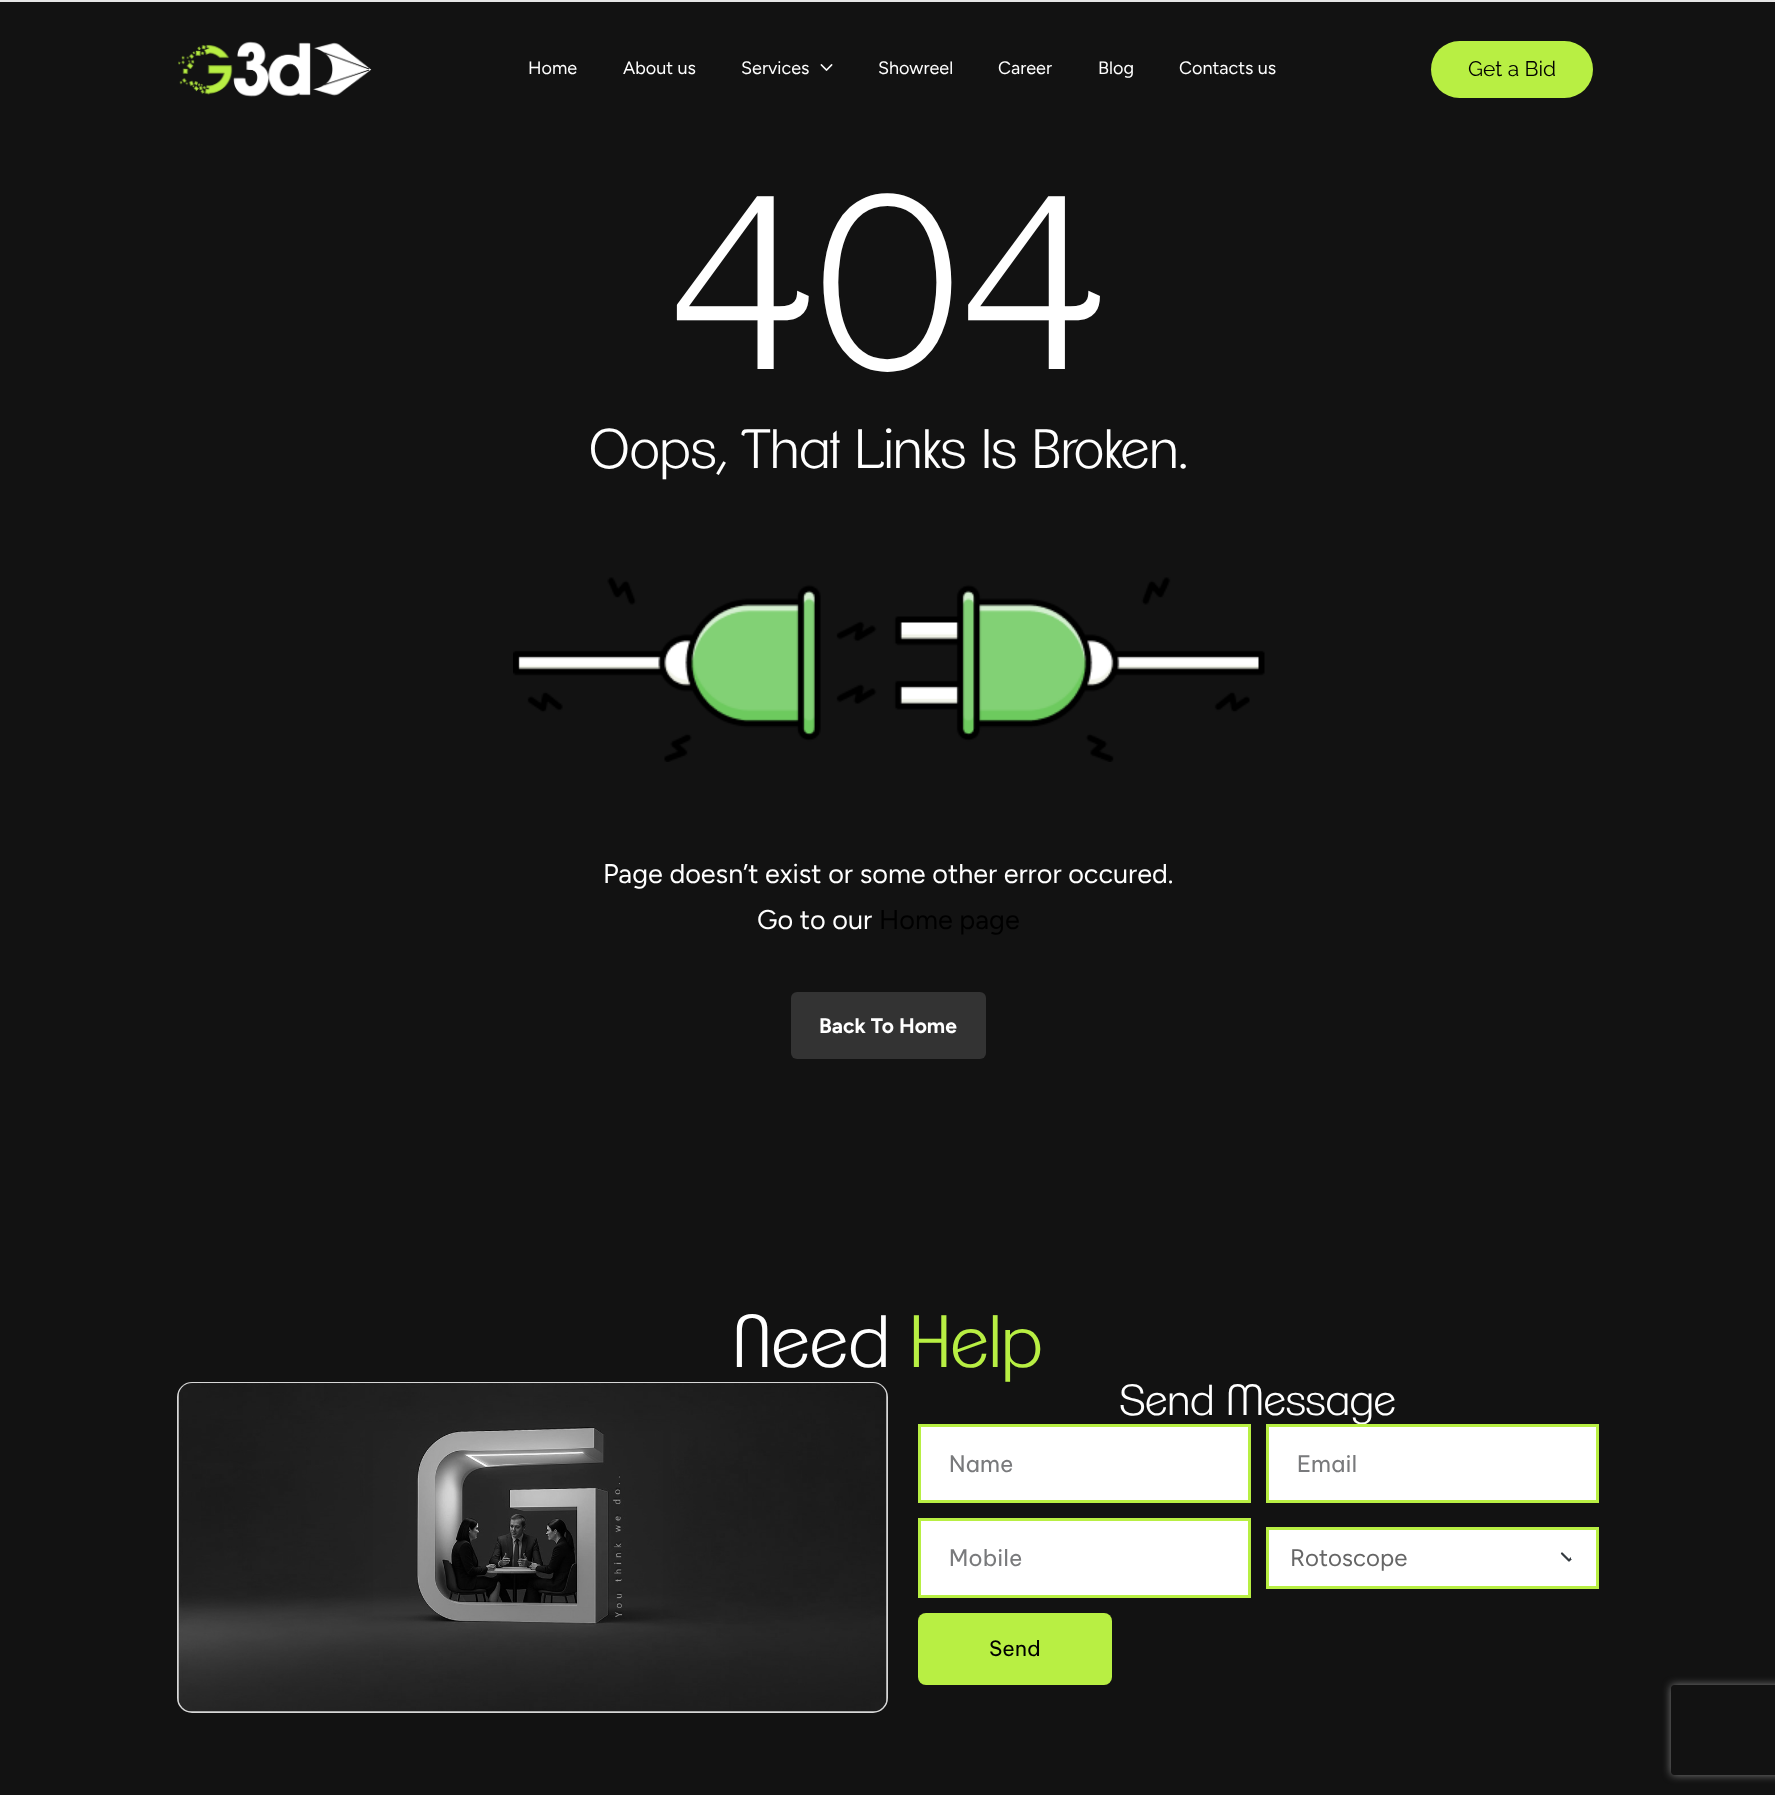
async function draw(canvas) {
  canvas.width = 1775;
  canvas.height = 1795;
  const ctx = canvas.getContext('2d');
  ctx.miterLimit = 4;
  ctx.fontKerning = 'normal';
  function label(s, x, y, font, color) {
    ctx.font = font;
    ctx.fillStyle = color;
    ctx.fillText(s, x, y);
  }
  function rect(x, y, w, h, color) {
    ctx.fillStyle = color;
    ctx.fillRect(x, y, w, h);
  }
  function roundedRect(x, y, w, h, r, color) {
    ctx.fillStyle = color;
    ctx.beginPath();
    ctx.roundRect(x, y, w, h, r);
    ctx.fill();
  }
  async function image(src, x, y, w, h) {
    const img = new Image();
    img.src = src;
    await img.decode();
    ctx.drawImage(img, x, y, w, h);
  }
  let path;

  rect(0, 0, 1775, 1795, '#121212');
  await image('assets/img1.png', 178, 41, 194, 56);
  label('Home', 528, 74, '18px Figtree', '#fff');
  label('About us', 623, 74, '18px Figtree', '#fff');
  label('Services', 741, 74, '18px Figtree', '#fff');
  await image('assets/img2.png', 820, 64, 13, 7);
  label('Showreel', 878, 74, '18px Figtree', '#fff');
  label('Career', 998, 74, '18px Figtree', '#fff');
  label('Blog', 1098, 74, '18px Figtree', '#fff');
  label('Contacts us', 1179, 74, '18px Figtree', '#fff');
  roundedRect(1431, 41, 162, 57, 28.5, '#b8ef43');
  label('Get a Bid', 1468, 76, '21px Raleway', '#000');
  rect(0, 0, 1775, 2, '#e5e5e5');
  label('404', 669, 369, '300 240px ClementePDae', '#fff');
  label('Oops, That Links Is Broken.', 589, 468, '300 54px ClementePDae', '#fff');
  await image('assets/img3.png', 513, 577, 752, 185);
  label('Page doesn’t exist or some other error occured.', 603, 883, '27px Figtree', '#fff');
  label('Go to our', 757, 929, '27px Figtree', '#fff');
  label('Home page', 879, 929, '27px Figtree', '#000');
  roundedRect(791, 992, 195, 67, 6, '#333');
  label('Back To Home', 819, 1033, 'bold 21px Figtree', '#fff');
  label('Need', 733, 1367, '300 72px ClementePDae', '#fff');
  label('Help', 910, 1367, '300 72px ClementePDae', '#b8ef43');
  ctx.beginPath();
  ctx.roundRect(178, 1383, 709, 329, 14);
  ctx.strokeStyle = '#d7d7d7';
  ctx.lineWidth = 2;
  ctx.stroke();
  await image('assets/img4.png', 178, 1383, 709, 329);
  label('Send Message', 1120, 1415, '300 42px ClementePDae', '#fff');
  ctx.beginPath();
  ctx.rect(919.5, 1425.5, 330, 76);
  ctx.fill();
  ctx.strokeStyle = '#b8ef43';
  ctx.lineWidth = 3;
  ctx.stroke();
  label('Name', 949, 1472, '22.5px Be Vietnam Pro', '#797a7c');
  ctx.fillStyle = '#fff';
  ctx.beginPath();
  ctx.rect(1267.5, 1425.5, 330, 76);
  ctx.fill();
  ctx.stroke();
  label('Email', 1297, 1472, '22.5px Be Vietnam Pro', '#797a7c');
  ctx.fillStyle = '#fff';
  ctx.beginPath();
  ctx.rect(919.5, 1519.5, 330, 77);
  ctx.fill();
  ctx.stroke();
  label('Mobile', 949, 1566, '22.5px Be Vietnam Pro', '#797a7c');
  rect(1269, 1530, 327, 56, '#fff');
  path = new Path2D('M1562 1553.5L1569 1560.5L1576 1553.5');
  ctx.strokeStyle = '#343a40';
  ctx.lineWidth = 2.2;
  ctx.lineCap = 'round';
  ctx.lineJoin = 'round';
  ctx.stroke(path);
  ctx.strokeStyle = '#b8ef43';
  ctx.lineWidth = 3;
  ctx.lineJoin = 'miter';
  ctx.strokeRect(1267.5, 1528.5, 330, 59);
  label('Rotoscope', 1290, 1566, '24px Figtree', '#666');
  rect(1571, 1552, 7, 7, '#fff');
  roundedRect(918, 1613, 194, 72, 8, '#b8ef43');
  label('Send', 989, 1656, '21px Be Vietnam Pro', '#000');
  ctx.save();
  path = new Path2D('M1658 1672H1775V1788H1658ZM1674 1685H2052C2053.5 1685 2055 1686.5 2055 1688V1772C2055 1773.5 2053.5 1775 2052 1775H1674C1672.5 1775 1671 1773.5 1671 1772V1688C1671 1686.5 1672.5 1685 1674 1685Z');
  ctx.clip(path, 'evenodd');
  ctx.fillStyle = '#808080';
  ctx.filter = 'blur(4px)';
  ctx.beginPath();
  ctx.roundRect(1671, 1685, 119, 90, 3);
  ctx.fill();
  ctx.filter = 'none';
  ctx.restore();
}

draw(document.querySelector('canvas'));
